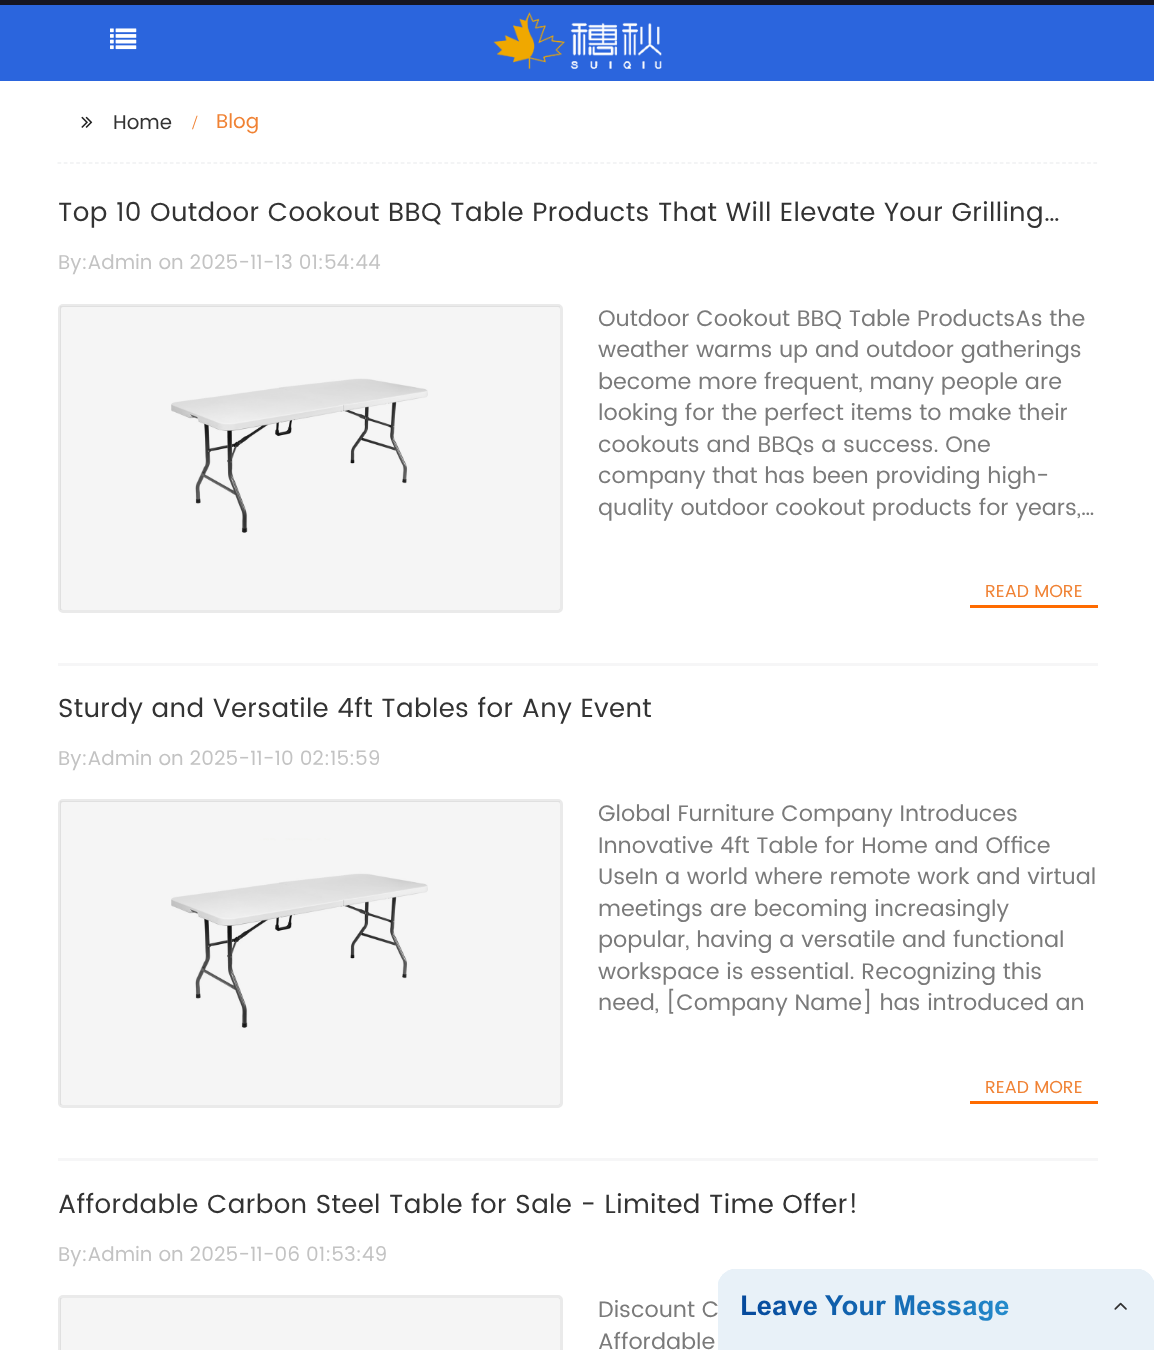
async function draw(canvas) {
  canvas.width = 1154;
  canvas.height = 1350;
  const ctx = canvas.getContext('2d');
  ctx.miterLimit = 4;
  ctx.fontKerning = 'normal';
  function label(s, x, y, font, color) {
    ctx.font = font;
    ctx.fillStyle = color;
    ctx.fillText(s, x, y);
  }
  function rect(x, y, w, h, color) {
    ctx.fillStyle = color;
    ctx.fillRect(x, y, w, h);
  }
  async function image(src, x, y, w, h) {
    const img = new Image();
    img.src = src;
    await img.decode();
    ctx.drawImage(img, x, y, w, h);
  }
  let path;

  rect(0, 0, 1154, 1350, '#2b65dd');
  rect(0, 0, 1154, 5, '#161622');
  await image('assets/img1.png', 110, 28, 27, 22);
  await image('assets/img2.png', 493, 12, 169, 57);
  rect(0, 81, 1154, 1269, '#fff');
  path = new Path2D('M57.5 163H1097.5');
  ctx.strokeStyle = '#e8e9ec';
  ctx.lineWidth = 1.2;
  ctx.setLineDash([3.75, 2.49]);
  ctx.stroke(path);
  await image('assets/img3.png', 81, 116, 12, 12);
  label('Home', 113, 129, '20px Poppins', '#333');
  label('/', 192, 129, '20px Liberation Serif', '#f08234');
  label('Blog', 216, 128, '20px Poppins', '#f08234');
  ctx.letterSpacing = '0.38px';
  label('Top 10 Outdoor Cookout BBQ Table Products That Will Elevate Your Grilling…', 58, 221, '26.25px Poppins', '#333');
  ctx.letterSpacing = '0px';
  label('By:Admin on 2025-11-13 01:54:44', 58, 269, '20px Poppins', '#c3c3c3');
  rect(58, 663, 1040, 3, '#f6f6f7');
  ctx.beginPath();
  ctx.roundRect(59.5, 305.5, 502, 306, 3.5);
  ctx.strokeStyle = '#eaeaea';
  ctx.lineWidth = 3;
  ctx.setLineDash([]);
  ctx.stroke();
  await image('assets/img4.png', 171, 378, 257, 155);
  rect(60, 306, 500, 304, '#0000000a');
  label('Outdoor Cookout BBQ Table ProductsAs the', 598, 326, '22.5px Poppins', '#7a7a7a');
  label('weather warms up and outdoor gatherings', 598, 357, '22.5px Poppins', '#7a7a7a');
  label('become more frequent, many people are', 598, 389, '22.5px Poppins', '#7a7a7a');
  label('looking for the perfect items to make their', 598, 420, '22.5px Poppins', '#7a7a7a');
  label('cookouts and BBQs a success. One', 598, 452, '22.5px Poppins', '#7a7a7a');
  label('company that has been providing high-', 598, 483, '22.5px Poppins', '#7a7a7a');
  label('quality outdoor cookout products for years,…', 598, 515, '22.5px Poppins', '#7a7a7a');
  rect(970, 605, 128, 3, '#ff6b00');
  label('READ MORE', 985, 597, '17.5px Poppins', '#f08234');
  ctx.letterSpacing = '0.38px';
  label('Sturdy and Versatile 4ft Tables for Any Event', 58, 717, '26.25px Poppins', '#333');
  ctx.letterSpacing = '0px';
  label('By:Admin on 2025-11-10 02:15:59', 58, 765, '20px Poppins', '#c3c3c3');
  rect(58, 1158, 1040, 3, '#f6f6f7');
  ctx.beginPath();
  ctx.roundRect(59.5, 800.5, 502, 306, 3.5);
  ctx.stroke();
  await image('assets/img5.png', 171, 838, 257, 190);
  rect(60, 801, 500, 304, '#0000000a');
  label('Global Furniture Company Introduces', 598, 821, '22.5px Poppins', '#7a7a7a');
  label('Innovative 4ft Table for Home and Office', 598, 853, '22.5px Poppins', '#7a7a7a');
  label('UseIn a world where remote work and virtual', 598, 884, '22.5px Poppins', '#7a7a7a');
  label('meetings are becoming increasingly', 598, 916, '22.5px Poppins', '#7a7a7a');
  label('popular, having a versatile and functional', 598, 947, '22.5px Poppins', '#7a7a7a');
  label('workspace is essential. Recognizing this', 598, 979, '22.5px Poppins', '#7a7a7a');
  label('need, [Company Name] has introduced an', 598, 1010, '22.5px Poppins', '#7a7a7a');
  rect(970, 1101, 128, 3, '#ff6b00');
  label('READ MORE', 985, 1093, '17.5px Poppins', '#f08234');
  ctx.letterSpacing = '0.38px';
  label('Affordable Carbon Steel Table for Sale - Limited Time Offer!', 58, 1213, '26.25px Poppins', '#333');
  ctx.letterSpacing = '0px';
  label('By:Admin on 2025-11-06 01:53:49', 58, 1261, '20px Poppins', '#c3c3c3');
  ctx.beginPath();
  ctx.roundRect(59.5, 1296.5, 502, 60, 3.5);
  ctx.stroke();
  rect(60, 1298, 500, 52, '#0000000a');
  label('Discount C', 598, 1317, '22.5px Poppins', '#7a7a7a');
  label('Affordable', 598, 1349, '22.5px Poppins', '#7a7a7a');
  await image('assets/img6.png', 718, 1269, 436, 81);
}

draw(document.querySelector('canvas'));
